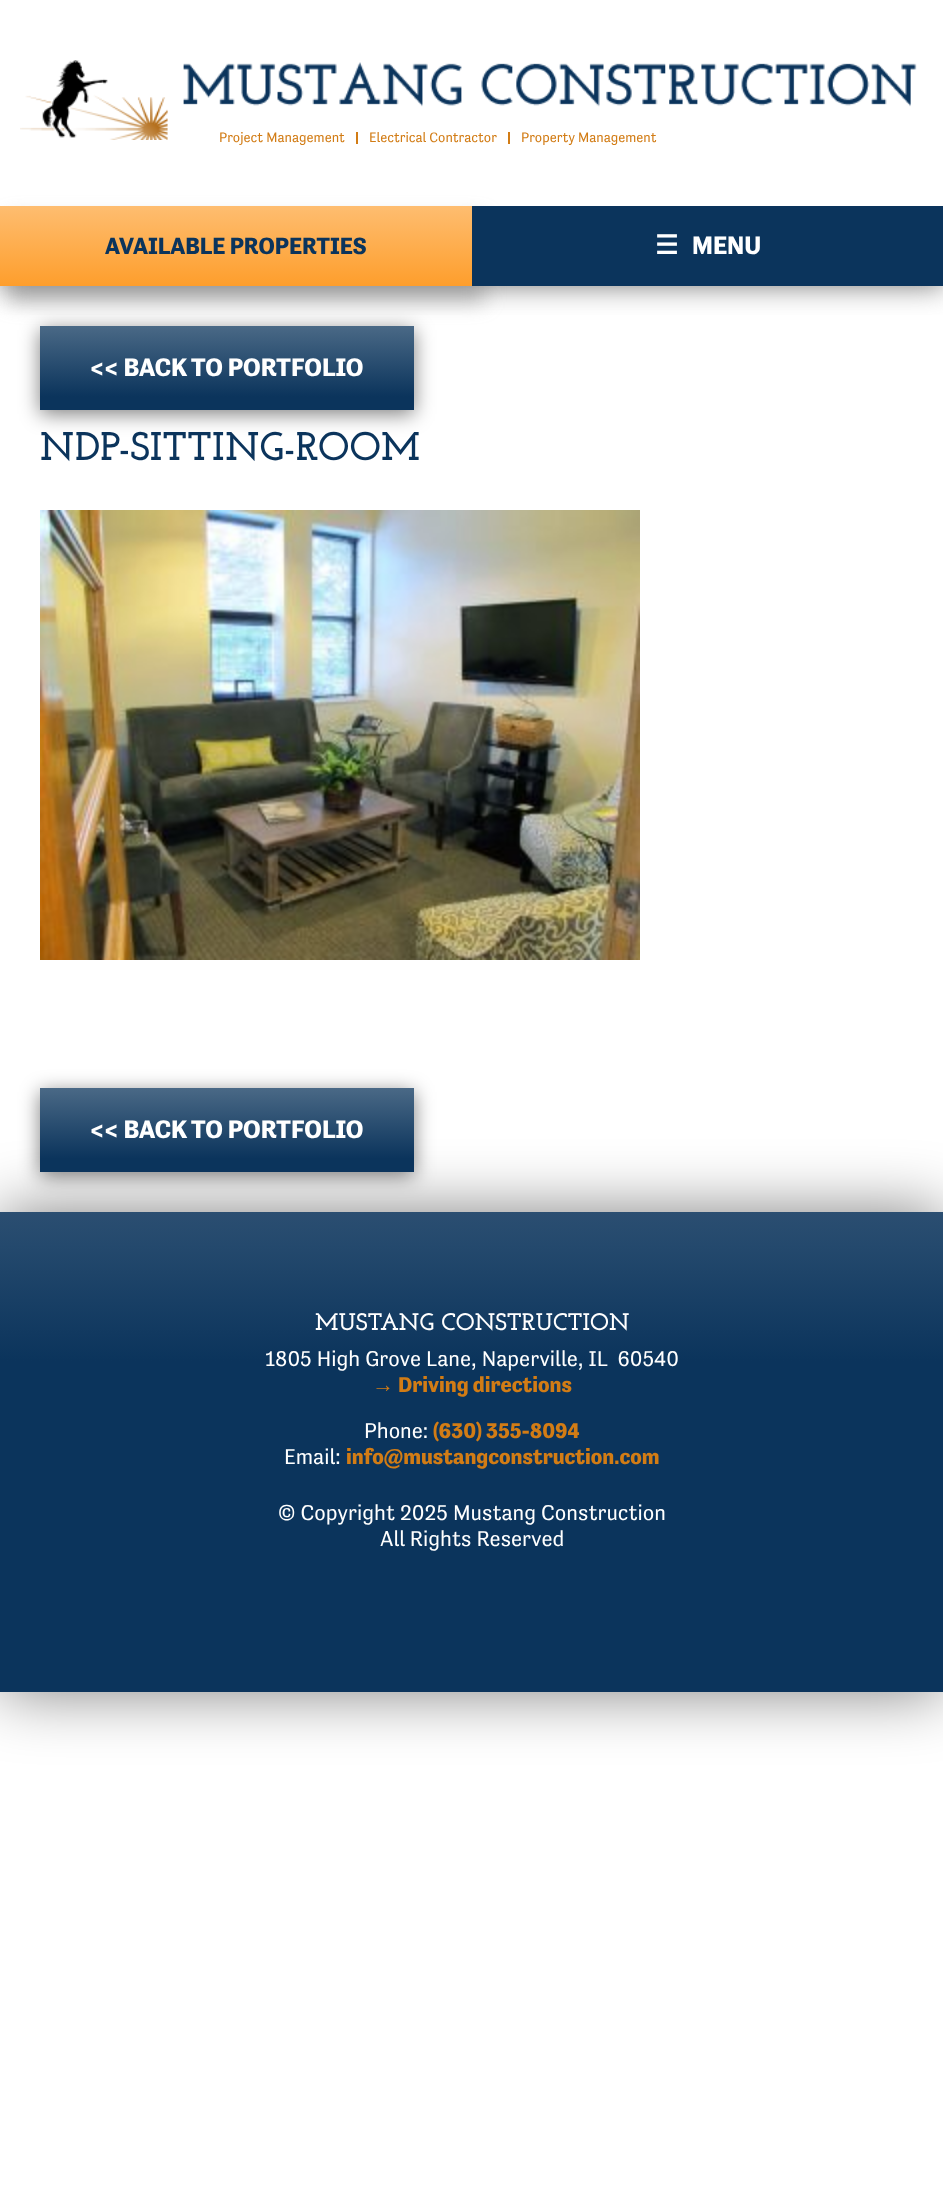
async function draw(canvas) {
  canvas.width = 943;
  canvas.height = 2199;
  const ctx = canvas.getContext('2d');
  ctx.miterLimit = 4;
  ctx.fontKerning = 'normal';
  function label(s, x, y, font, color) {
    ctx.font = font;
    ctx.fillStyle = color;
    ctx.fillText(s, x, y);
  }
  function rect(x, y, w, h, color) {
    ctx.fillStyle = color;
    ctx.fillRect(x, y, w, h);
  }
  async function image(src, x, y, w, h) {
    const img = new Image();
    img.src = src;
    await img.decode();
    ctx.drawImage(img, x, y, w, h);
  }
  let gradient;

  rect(0, 0, 943, 2199, '#fff');
  ctx.fillStyle = '#00000080';
  ctx.filter = 'blur(10px)';
  ctx.beginPath();
  ctx.rect(40, 330, 374, 84);
  ctx.fill();
  ctx.filter = 'none';
  gradient = ctx.createLinearGradient(227, 326, 227, 410);
  gradient.addColorStop(0, '#4a6986');
  gradient.addColorStop(0.84, '#0b345c');
  ctx.fillStyle = gradient;
  ctx.fillRect(40, 326, 374, 84);
  ctx.save();
  ctx.beginPath();
  ctx.rect(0, 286, 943, 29);
  ctx.clip();
  ctx.fillStyle = '#777';
  ctx.filter = 'blur(14px)';
  ctx.beginPath();
  ctx.rect(0, 0, 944, 286);
  ctx.fill();
  ctx.filter = 'none';
  ctx.restore();
  await image('assets/img1.png', 20, 60, 897, 80);
  label('Project Management', 219, 142, '14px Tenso', '#d27c15');
  rect(356, 132, 2, 12, '#d27c15');
  label('Electrical Contractor', 369, 142, '14px Tenso', '#d27c15');
  rect(508, 132, 2, 12, '#d27c15');
  label('Property Management', 521, 142, '14px Tenso', '#d27c15');
  ctx.fillStyle = '#88888880';
  ctx.filter = 'blur(10px)';
  ctx.beginPath();
  ctx.rect(8, 218, 476, 84);
  ctx.fill();
  ctx.filter = 'none';
  gradient = ctx.createLinearGradient(236, 206, 236, 286);
  gradient.addColorStop(0, '#febd70');
  gradient.addColorStop(1, '#fe9e2c');
  ctx.fillStyle = gradient;
  ctx.fillRect(0, 206, 472, 80);
  label('AVAILABLE PROPERTIES', 105, 254, 'bold 24px Tenso', '#0b345c');
  rect(472, 206, 471, 80, '#0b345c');
  label('☰', 655, 254, 'bold 26px DejaVu Sans', '#fff');
  label('MENU', 692, 254, 'bold 26px Tenso', '#fff');
  label('<< BACK TO PORTFOLIO', 90, 376, 'bold 26px Tenso', '#fff');
  label('NDP-SITTING-ROOM', 40, 460, 'bold 40px Josefin Slab', '#0b345c');
  await image('assets/img2.png', 40, 510, 600, 450);
  ctx.fillStyle = '#00000080';
  ctx.filter = 'blur(10px)';
  ctx.beginPath();
  ctx.rect(40, 1092, 374, 84);
  ctx.fill();
  ctx.filter = 'none';
  ctx.filter = 'blur(32px)';
  ctx.beginPath();
  ctx.rect(0, 1212, 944, 480);
  ctx.fill();
  ctx.filter = 'none';
  gradient = ctx.createLinearGradient(227, 1088, 227, 1172);
  gradient.addColorStop(0, '#4a6986');
  gradient.addColorStop(0.84, '#0b345c');
  ctx.fillStyle = gradient;
  ctx.fillRect(40, 1088, 374, 84);
  label('<< BACK TO PORTFOLIO', 90, 1138, 'bold 26px Tenso', '#fff');
  gradient = ctx.createLinearGradient(472, 1212, 472, 1692);
  gradient.addColorStop(0, '#2b4e71');
  gradient.addColorStop(0.07, '#24496d');
  gradient.addColorStop(0.31, '#0b345c');
  gradient.addColorStop(1, '#0b345c');
  ctx.fillStyle = gradient;
  ctx.fillRect(0, 1212, 943, 480);
  label('MUSTANG CONSTRUCTION', 315, 1330, 'bold 24px Josefin Slab', '#fff');
  label('1805 High Grove Lane, Naperville, IL  60540', 265, 1366, '22px Tenso', '#fff');
  label('→', 372, 1392, 'bold 22px Liberation Sans', '#d27c15');
  label('Driving directions', 398, 1392, 'bold 22px Tenso', '#d27c15');
  label('Phone:', 364, 1438, '22px Tenso', '#fff');
  label('(630) 355-8094', 433, 1438, 'bold 22px Tenso', '#d27c15');
  label('Email:', 284, 1464, '22px Tenso', '#fff');
  label('info@mustangconstruction.com', 346, 1464, 'bold 22px Tenso', '#d27c15');
  label('© Copyright 2025 Mustang Construction', 278, 1520, '22px Tenso', '#fff');
  label('All Rights Reserved', 380, 1546, '22px Tenso', '#fff');
}

draw(document.querySelector('canvas'));
